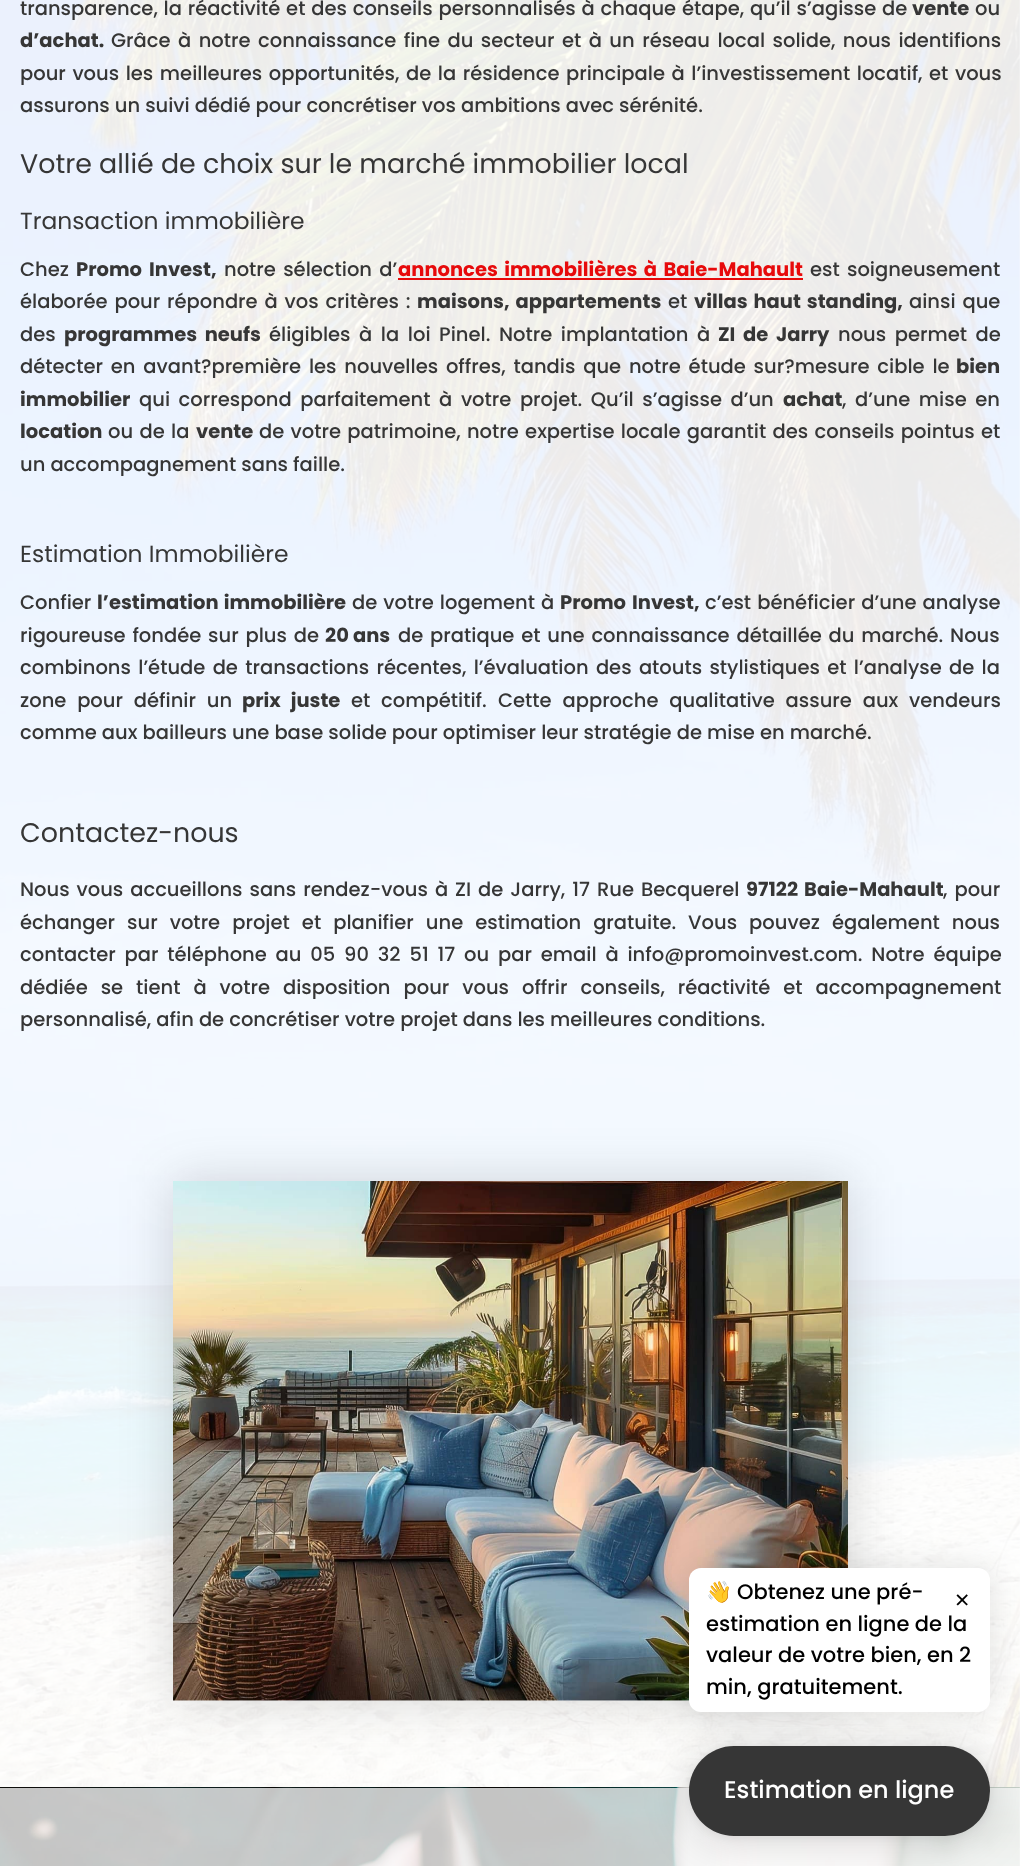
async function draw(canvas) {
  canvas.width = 1020;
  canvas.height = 1866;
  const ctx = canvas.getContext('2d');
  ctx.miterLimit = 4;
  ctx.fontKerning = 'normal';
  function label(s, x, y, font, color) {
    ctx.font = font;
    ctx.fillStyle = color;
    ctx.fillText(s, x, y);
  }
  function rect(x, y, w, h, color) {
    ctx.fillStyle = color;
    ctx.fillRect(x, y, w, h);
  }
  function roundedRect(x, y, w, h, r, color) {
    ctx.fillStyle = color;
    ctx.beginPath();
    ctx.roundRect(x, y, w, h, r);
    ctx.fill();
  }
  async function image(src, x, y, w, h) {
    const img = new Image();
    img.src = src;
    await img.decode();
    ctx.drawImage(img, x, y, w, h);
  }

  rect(0, 0, 1020, 1866, '#fff');
  await image('assets/img1.png', 0, 0, 1020, 1788);
  ctx.wordSpacing = '0.75px';
  label('transparence, la réactivité et des conseils personnalisés à chaque étape, qu’il s’agisse de', 20, 15, '500 19.5px Poppins', '#363636');
  ctx.wordSpacing = '0px';
  label('vente', 912, 15, 'bold 19.5px Poppins', '#363636');
  label('ou', 975, 15, '500 19.5px Poppins', '#363636');
  label('d’achat.', 20, 47, 'bold 19.5px Poppins', '#363636');
  ctx.wordSpacing = '2.4px';
  label('Grâce à notre connaissance fine du secteur et à un réseau local solide, nous identifions', 111, 47, '500 19.5px Poppins', '#363636');
  ctx.wordSpacing = '1.5px';
  label('pour vous les meilleures opportunités, de la résidence principale à l’investissement locatif, et vous', 20, 80, '500 19.5px Poppins', '#363636');
  ctx.wordSpacing = '0px';
  label('assurons un suivi dédié pour concrétiser vos ambitions avec sérénité.', 20, 112, '500 19.5px Poppins', '#363636');
  label('Votre allié de choix sur le marché immobilier local', 20, 173, '26.9px Poppins', '#363636');
  label('Transaction immobilière', 20, 229, '23.4px Poppins', '#363636');
  label('Chez', 20, 276, '500 19.5px Poppins', '#363636');
  label('Promo', 76, 276, 'bold 19.5px Poppins', '#363636');
  label('Invest,', 149, 276, 'bold 19.5px Poppins', '#363636');
  ctx.wordSpacing = '2.25px';
  label('notre sélection d’', 224, 276, '500 19.5px Poppins', '#363636');
  label('annonces immobilières à Baie-Mahault', 398, 276, 'bold 19.5px Poppins', '#e70a0b');
  rect(398, 278, 405, 2, '#e70a0b');
  label('est soigneusement', 810, 276, '500 19.5px Poppins', '#363636');
  ctx.wordSpacing = '1.75px';
  label('élaborée pour répondre à vos critères :', 20, 308, '500 19.5px Poppins', '#363636');
  label('maisons, appartements', 417, 308, 'bold 19.5px Poppins', '#363636');
  ctx.wordSpacing = '0px';
  label('et', 668, 308, '500 19.5px Poppins', '#363636');
  ctx.wordSpacing = '1.75px';
  label('villas haut standing,', 694, 308, 'bold 19.5px Poppins', '#363636');
  label('ainsi que', 909, 308, '500 19.5px Poppins', '#363636');
  ctx.wordSpacing = '0px';
  label('des', 20, 341, '500 19.5px Poppins', '#363636');
  ctx.wordSpacing = '3.5px';
  label('programmes neufs', 64, 341, 'bold 19.5px Poppins', '#363636');
  label('éligibles à la loi Pinel. Notre implantation à', 269, 341, '500 19.5px Poppins', '#363636');
  label('ZI de Jarry', 718, 341, 'bold 19.5px Poppins', '#363636');
  label('nous permet de', 838, 341, '500 19.5px Poppins', '#363636');
  ctx.wordSpacing = '2.75px';
  label('détecter en avant?première les nouvelles offres, tandis que notre étude sur?mesure cible le', 20, 373, '500 19.5px Poppins', '#363636');
  ctx.wordSpacing = '0px';
  label('bien', 956, 373, 'bold 19.5px Poppins', '#363636');
  label('immobilier', 20, 406, 'bold 19.5px Poppins', '#363636');
  ctx.wordSpacing = '3.5px';
  label('qui correspond parfaitement à votre projet. Qu’il s’agisse d’un', 139, 406, '500 19.5px Poppins', '#363636');
  ctx.wordSpacing = '0px';
  label('achat', 783, 406, 'bold 19.5px Poppins', '#363636');
  ctx.wordSpacing = '3.5px';
  label(', d’une mise en', 842, 406, '500 19.5px Poppins', '#363636');
  ctx.wordSpacing = '0px';
  label('location', 20, 438, 'bold 19.5px Poppins', '#363636');
  ctx.wordSpacing = '1.25px';
  label('ou de la', 108, 438, '500 19.5px Poppins', '#363636');
  ctx.wordSpacing = '0px';
  label('vente', 196, 438, 'bold 19.5px Poppins', '#363636');
  ctx.wordSpacing = '1.25px';
  label('de votre patrimoine, notre expertise locale garantit des conseils pointus et', 259, 438, '500 19.5px Poppins', '#363636');
  ctx.wordSpacing = '0px';
  label('un accompagnement sans faille.', 20, 471, '500 19.5px Poppins', '#363636');
  label('Estimation Immobilière', 20, 562, '23.4px Poppins', '#363636');
  label('Confier', 20, 609, '500 19.5px Poppins', '#363636');
  ctx.wordSpacing = '1px';
  label('l’estimation immobilière', 97, 609, 'bold 19.5px Poppins', '#363636');
  label('de votre logement à', 352, 609, '500 19.5px Poppins', '#363636');
  ctx.wordSpacing = '0px';
  label('Promo', 560, 609, 'bold 19.5px Poppins', '#363636');
  label('Invest,', 632, 609, 'bold 19.5px Poppins', '#363636');
  ctx.wordSpacing = '1px';
  label('c’est bénéficier d’une analyse', 705, 609, '500 19.5px Poppins', '#363636');
  ctx.wordSpacing = '1.75px';
  label('rigoureuse fondée sur plus de', 20, 642, '500 19.5px Poppins', '#363636');
  ctx.wordSpacing = '0px';
  label('20 ans', 325, 642, 'bold 19.5px Poppins', '#363636');
  ctx.wordSpacing = '1.75px';
  label('de pratique et une connaissance détaillée du marché. Nous', 398, 642, '500 19.5px Poppins', '#363636');
  ctx.wordSpacing = '2.25px';
  label('combinons l’étude de transactions récentes, l’évaluation des atouts stylistiques et l’analyse de la', 20, 674, '500 19.5px Poppins', '#363636');
  ctx.wordSpacing = '5.75px';
  label('zone pour définir un', 20, 707, '500 19.5px Poppins', '#363636');
  label('prix juste', 242, 707, 'bold 19.5px Poppins', '#363636');
  label('et compétitif.', 351, 707, '500 19.5px Poppins', '#363636');
  label('Cette approche qualitative assure aux vendeurs', 498, 707, '500 19.5px Poppins', '#363636');
  ctx.wordSpacing = '0px';
  label('comme aux bailleurs une base solide pour optimiser leur stratégie de mise en marché.', 20, 739, '500 19.5px Poppins', '#363636');
  label('Contactez-nous', 20, 842, '26.9px Poppins', '#363636');
  ctx.wordSpacing = '1.9px';
  label('Nous vous accueillons sans rendez-vous à ZI de Jarry, 17 Rue Becquerel', 20, 896, '500 19.5px Poppins', '#363636');
  label('97122 Baie-Mahault', 746, 896, 'bold 19.5px Poppins', '#363636');
  ctx.wordSpacing = '2px';
  label(', pour', 943, 896, '500 19.5px Poppins', '#363636');
  ctx.wordSpacing = '7px';
  label('échanger sur votre projet et planifier une estimation gratuite.', 20, 929, '500 19.5px Poppins', '#363636');
  label('Vous pouvez également nous', 688, 929, '500 19.5px Poppins', '#363636');
  ctx.wordSpacing = '3.75px';
  label('contacter par téléphone au 05 90 32 51 17 ou par email à info@promoinvest.com. Notre équipe', 20, 961, '500 19.5px Poppins', '#363636');
  ctx.wordSpacing = '7.9px';
  label('dédiée se tient à votre disposition pour vous offrir conseils, réactivité et accompagnement', 20, 994, '500 19.5px Poppins', '#363636');
  ctx.wordSpacing = '0px';
  label('personnalisé, afin de concrétiser votre projet dans les meilleures conditions.', 20, 1026, '500 19.5px Poppins', '#363636');
  ctx.fillStyle = '#36363633';
  ctx.filter = 'blur(26px)';
  ctx.beginPath();
  ctx.rect(173, 1182, 675, 519);
  ctx.fill();
  ctx.filter = 'none';
  rect(173, 1700, 517, 1, '#f1f1f1');
  await image('assets/img2.png', 173, 1181, 675, 520);
  await image('assets/img3.png', 0, 1787, 1020, 79);
  ctx.fillStyle = '#00000029';
  ctx.filter = 'blur(24px)';
  ctx.beginPath();
  ctx.roundRect(689, 1749, 301, 90, 45);
  ctx.fill();
  ctx.filter = 'none';
  ctx.fillStyle = '#0000000f';
  ctx.filter = 'blur(4.5px)';
  ctx.beginPath();
  ctx.roundRect(689, 1748, 301, 90, 45);
  ctx.fill();
  ctx.filter = 'none';
  roundedRect(689, 1746, 301, 90, 45, '#363636');
  ctx.fillStyle = '#0000001a';
  ctx.filter = 'blur(15px)';
  ctx.beginPath();
  ctx.roundRect(687, 1566, 305, 147, 14);
  ctx.fill();
  ctx.filter = 'none';
  roundedRect(689, 1568, 301, 144, 12, '#fff');
  label('👋', 706, 1599, '21px Noto Color Emoji', '#000');
  label('Obtenez une pré-', 737, 1599, '500 21px Poppins', '#000');
  label('estimation en ligne de la', 706, 1631, '500 21px Poppins', '#000');
  label('valeur de votre bien, en 2', 706, 1662, '500 21px Poppins', '#000');
  label('min, gratuitement.', 706, 1694, '500 21px Poppins', '#000');
  label('✕', 954, 1607, '19.5px DejaVu Sans', '#000');
  label('Estimation en ligne', 724, 1798, '500 24px Poppins', '#fff');
}

draw(document.querySelector('canvas'));
